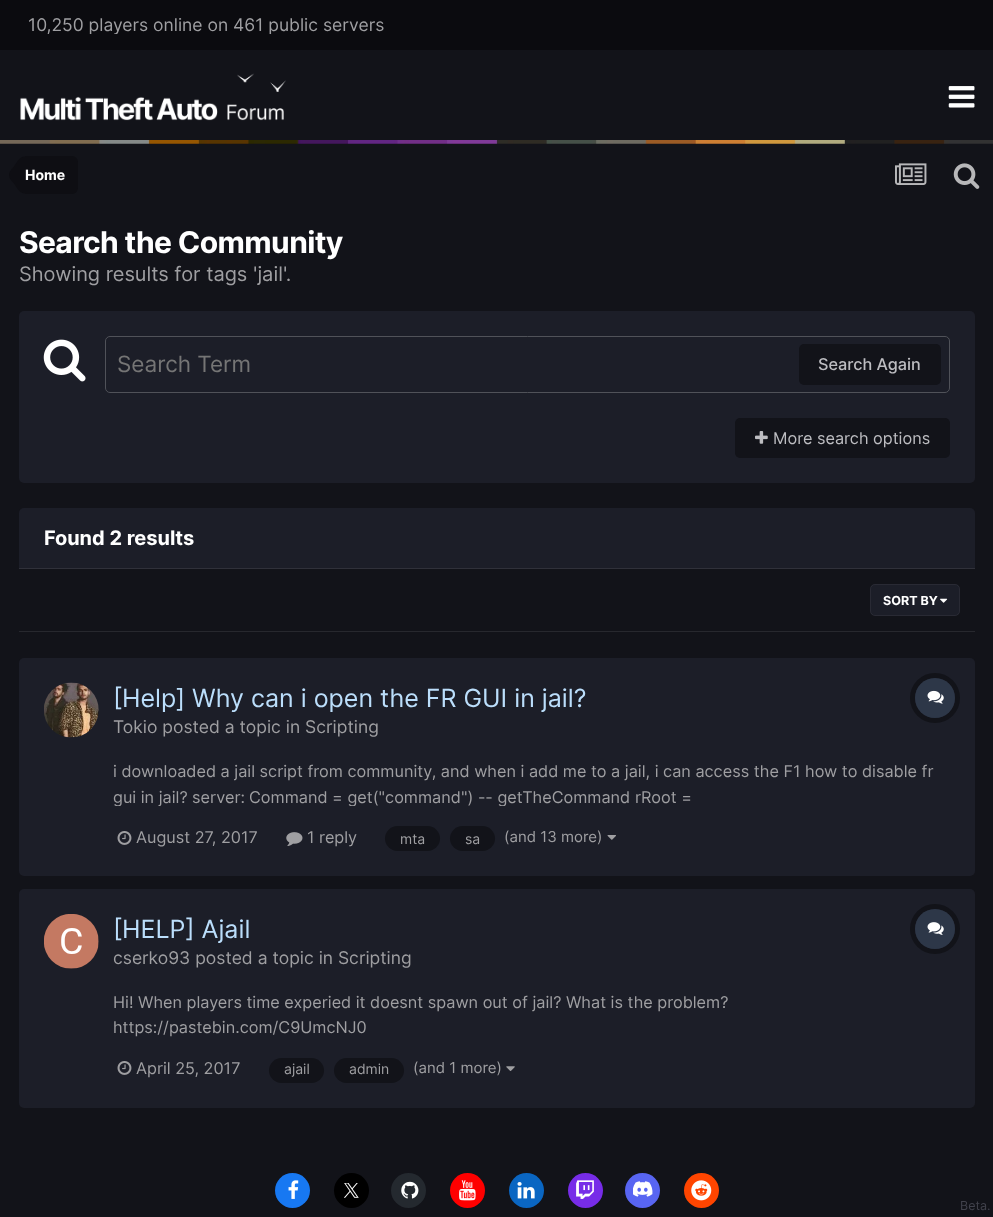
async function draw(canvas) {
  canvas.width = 993;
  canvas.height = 1217;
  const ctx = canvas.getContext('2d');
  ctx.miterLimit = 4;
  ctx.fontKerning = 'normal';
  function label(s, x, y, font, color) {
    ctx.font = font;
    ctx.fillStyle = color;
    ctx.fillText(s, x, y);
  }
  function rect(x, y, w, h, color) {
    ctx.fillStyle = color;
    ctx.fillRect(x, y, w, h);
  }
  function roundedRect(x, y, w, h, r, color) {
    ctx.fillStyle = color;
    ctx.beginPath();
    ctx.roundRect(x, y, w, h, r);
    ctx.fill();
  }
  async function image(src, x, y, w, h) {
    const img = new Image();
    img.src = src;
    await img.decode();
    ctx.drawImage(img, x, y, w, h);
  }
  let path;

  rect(0, 0, 993, 1217, '#121319');
  await image('assets/img1.png', 0, 140, 993, 4);
  rect(0, 0, 993, 50, '#0b0b0f');
  ctx.save();
  ctx.beginPath();
  ctx.rect(9, 16, 977, 18);
  ctx.clip();
  label('10,250 players online on 461 public servers', 28, 31, '17.5px Inter', '#9f9fa2');
  ctx.restore();
  await image('assets/img2.png', 20, 73, 266, 48);
  await image('assets/img3.png', 948, 86, 27, 22);
  ctx.fillStyle = '#0e0e13';
  ctx.beginPath();
  ctx.roundRect(25, 156, 53, 38, [0, 6, 6, 0]);
  ctx.fill();
  path = new Path2D('M25 175V193.5C19.5 193.5 16.5 187 14 183.5C12 181 9 178.5 9 175ZM25 175H9C9 171.5 12 169 14 166.5C16.5 163 19.5 156.5 25 156.5Z');
  ctx.fill(path);
  label('Home', 25, 180, 'bold 14px Inter', '#fff');
  await image('assets/img4.png', 895, 163, 32, 22);
  await image('assets/img5.png', 953, 163, 27, 26);
  ctx.letterSpacing = '-0.6px';
  label('Search the Community', 19, 253, 'bold 30px Inter', '#fff');
  ctx.letterSpacing = '0px';
  label('Showing results for tags \'jail\'.', 19, 281, '20px Inter', '#9f9fa2');
  roundedRect(19, 311, 956, 172, 5, '#1c1e28');
  await image('assets/img6.png', 43, 339, 43, 43);
  ctx.beginPath();
  ctx.roundRect(105.5, 336.5, 844, 56, 4.5);
  ctx.strokeStyle = '#505259';
  ctx.stroke();
  label('Search Term', 117, 372, '22.5px Inter', '#757575');
  roundedRect(799, 344, 142, 41, 5, '#121319');
  label('Search Again', 818, 370, '500 16.25px Inter', '#bdbdc1');
  roundedRect(735, 418, 215, 40, 5, '#121319');
  await image('assets/img7.png', 755, 431, 13, 13);
  label('More search options', 773, 444, '16.25px Inter', '#bdbdc1');
  ctx.fillStyle = '#1c1e28';
  ctx.beginPath();
  ctx.roundRect(19, 508, 956, 61, [5, 5, 0, 0]);
  ctx.fill();
  rect(19, 568, 956, 1, '#30313a');
  label('Found 2 results', 44, 545, 'bold 20px Inter', '#fff');
  rect(19, 631, 956, 1, '#27282e');
  roundedRect(870, 584, 90, 32, 5, '#1c1e28');
  await image('assets/img8.png', 940, 598, 8, 5);
  ctx.beginPath();
  ctx.roundRect(870.5, 584.5, 89, 31, 4.5);
  ctx.strokeStyle = '#9f9fa21a';
  ctx.stroke();
  label('SORT BY', 883, 605, 'bold 12.5px Inter', '#fff');
  roundedRect(19, 658, 956, 218, 5, '#1c1e28');
  await image('assets/img9.png', 44, 682, 55, 56);
  label('[Help] Why can i open the FR GUI in jail?', 113, 707, '25px Inter', '#bbdefb');
  label('Tokio posted a topic in Scripting', 113, 733, '17.5px Inter', '#9f9fa2');
  ctx.beginPath();
  ctx.arc(935, 698, 22.5, 0, 2 * Math.PI);
  ctx.strokeStyle = '#121319';
  ctx.lineWidth = 5;
  ctx.stroke();
  ctx.fillStyle = '#2d3748';
  ctx.beginPath();
  ctx.arc(935, 698, 20, 0, 2 * Math.PI);
  ctx.fill();
  await image('assets/img10.png', 927, 690, 17, 14);
  label('i downloaded a jail script from community, and when i add me to a jail, i can access the F1 how to disable fr', 113, 777, '16.25px Inter', '#9f9fa2');
  ctx.save();
  ctx.beginPath();
  ctx.rect(113, 758, 837, 48);
  ctx.clip();
  label('gui in jail?', 113, 803, '16.25px Inter', '#9f9fa2');
  ctx.restore();
  label('server:', 192, 803, '16.25px Inter', '#9f9fa2');
  ctx.save();
  ctx.beginPath();
  ctx.rect(113, 758, 837, 48);
  ctx.clip();
  label('Command = get("command") -- getTheCommand', 249, 803, '16.25px Inter', '#9f9fa2');
  ctx.restore();
  label('rRoot =', 635, 803, '16.25px Inter', '#9f9fa2');
  await image('assets/img11.png', 117, 831, 15, 14);
  label('August 27, 2017', 136, 843, '16.25px Inter', '#9f9fa2');
  await image('assets/img12.png', 286, 832, 17, 14);
  label('1 reply', 307, 843, '16.25px Inter', '#9f9fa2');
  roundedRect(385, 826, 55, 25, 12.5, '#121319');
  label('mta', 400, 844, '14px Inter', '#9f9fa2');
  roundedRect(450, 826, 45, 25, 12.5, '#121319');
  label('sa', 465, 844, '14px Inter', '#9f9fa2');
  label('(and 13 more)', 504, 842, '15px Inter', '#9f9fa2');
  await image('assets/img13.png', 607, 835, 9, 5);
  roundedRect(19, 889, 956, 219, 5, '#1c1e28');
  await image('assets/img14.png', 44, 914, 55, 55);
  label('[HELP] Ajail', 113, 938, '25px Inter', '#bbdefb');
  label('cserko93 posted a topic in Scripting', 113, 964, '17.5px Inter', '#9f9fa2');
  ctx.beginPath();
  ctx.arc(935, 929, 22.5, 0, 2 * Math.PI);
  ctx.stroke();
  ctx.fillStyle = '#2d3748';
  ctx.beginPath();
  ctx.arc(935, 929, 20, 0, 2 * Math.PI);
  ctx.fill();
  await image('assets/img15.png', 927, 922, 17, 13);
  label('Hi! When players time experied it doesnt spawn out of jail? What is the problem?', 113, 1008, '16.25px Inter', '#9f9fa2');
  label('https://pastebin.com/C9UmcNJ0', 113, 1033, '16.25px Inter', '#9f9fa2');
  await image('assets/img11.png', 117, 1061, 15, 14);
  label('April 25, 2017', 136, 1074, '16.25px Inter', '#9f9fa2');
  roundedRect(269, 1058, 55, 25, 12.5, '#121319');
  label('ajail', 284, 1074, '14px Inter', '#9f9fa2');
  roundedRect(334, 1058, 70, 25, 12.5, '#121319');
  label('admin', 349, 1074, '14px Inter', '#9f9fa2');
  label('(and 1 more)', 413, 1073, '15px Inter', '#9f9fa2');
  await image('assets/img16.png', 506, 1066, 9, 5);
  ctx.fillStyle = '#1778f2';
  ctx.beginPath();
  ctx.arc(292.5, 1190.5, 17.5, 0, 2 * Math.PI);
  ctx.fill();
  await image('assets/img17.png', 288, 1180, 11, 19);
  ctx.fillStyle = '#000';
  ctx.beginPath();
  ctx.arc(351.5, 1190.5, 17.5, 0, 2 * Math.PI);
  ctx.fill();
  await image('assets/img18.png', 344, 1183, 15, 15);
  ctx.fillStyle = '#24292f';
  ctx.beginPath();
  ctx.arc(408.5, 1190.5, 17.5, 0, 2 * Math.PI);
  ctx.fill();
  await image('assets/img19.png', 401, 1181, 18, 18);
  ctx.fillStyle = '#f00';
  ctx.beginPath();
  ctx.arc(467.5, 1190.5, 17.5, 0, 2 * Math.PI);
  ctx.fill();
  await image('assets/img20.png', 459, 1180, 17, 21);
  ctx.fillStyle = '#0a66c2';
  ctx.beginPath();
  ctx.arc(526.5, 1190.5, 17.5, 0, 2 * Math.PI);
  ctx.fill();
  await image('assets/img21.png', 517, 1182, 18, 17);
  ctx.fillStyle = '#772ce8';
  ctx.beginPath();
  ctx.arc(585.5, 1190.5, 17.5, 0, 2 * Math.PI);
  ctx.fill();
  await image('assets/img22.png', 576, 1180, 18, 19);
  ctx.fillStyle = '#5865f2';
  ctx.beginPath();
  ctx.arc(642.5, 1190.5, 17.5, 0, 2 * Math.PI);
  ctx.fill();
  await image('assets/img23.png', 633, 1181, 20, 16);
  ctx.fillStyle = '#ff4500';
  ctx.beginPath();
  ctx.arc(701.5, 1190.5, 17.5, 0, 2 * Math.PI);
  ctx.fill();
  await image('assets/img24.png', 691, 1180, 21, 21);
  label('Beta.', 960, 1210, '12.5px Inter', '#41424c');
}

draw(document.querySelector('canvas'));
